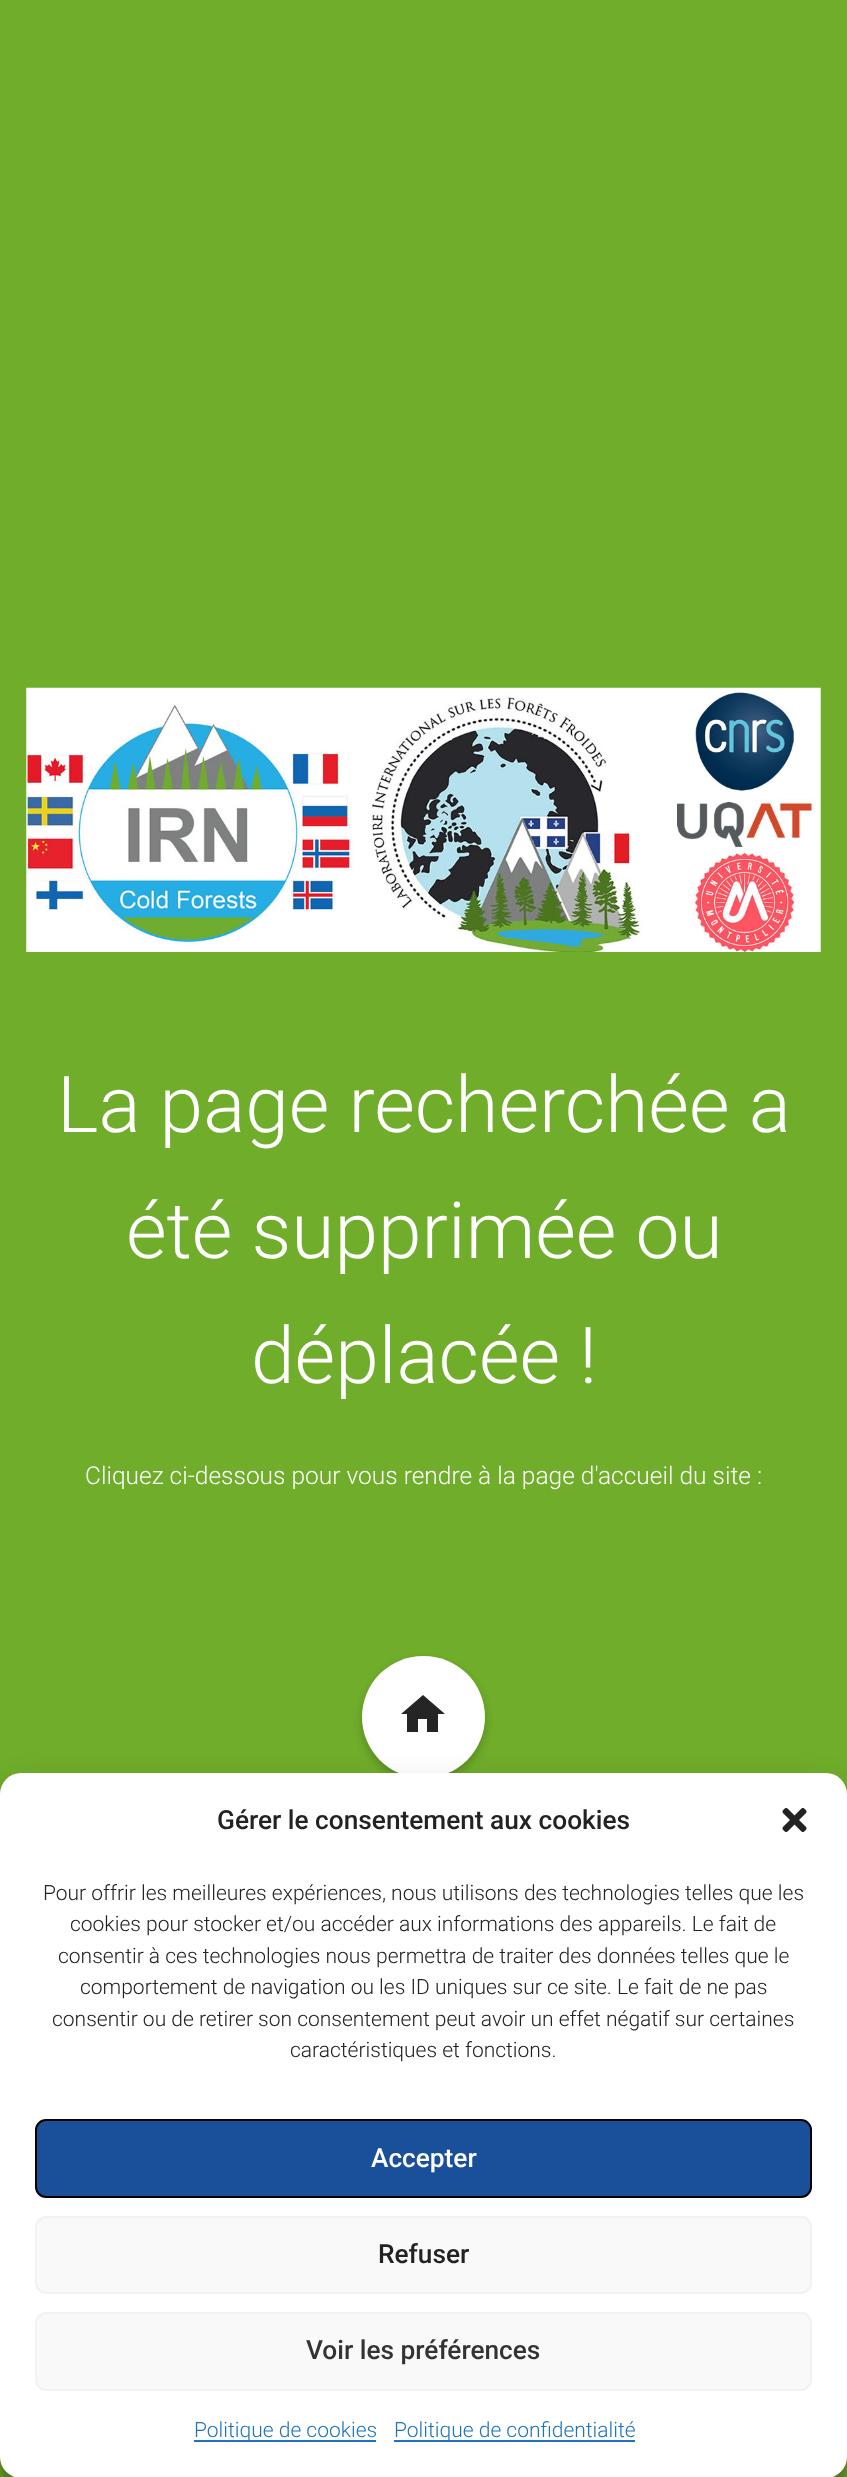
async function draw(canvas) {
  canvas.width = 847;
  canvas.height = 2477;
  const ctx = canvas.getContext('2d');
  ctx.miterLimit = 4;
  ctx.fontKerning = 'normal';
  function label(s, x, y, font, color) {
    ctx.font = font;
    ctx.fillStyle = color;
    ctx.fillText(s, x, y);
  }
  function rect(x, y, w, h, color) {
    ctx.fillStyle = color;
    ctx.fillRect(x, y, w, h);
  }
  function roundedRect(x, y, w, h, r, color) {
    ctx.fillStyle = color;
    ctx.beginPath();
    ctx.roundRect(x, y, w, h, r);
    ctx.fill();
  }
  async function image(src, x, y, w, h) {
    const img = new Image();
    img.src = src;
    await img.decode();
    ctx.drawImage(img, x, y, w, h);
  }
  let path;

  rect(0, 0, 847, 2477, '#6fad2a');
  await image('assets/img1.png', 26, 687, 795, 265);
  label('La page recherchée a', 57, 1132, '300 78.5px Roboto', '#fff');
  label('été supprimée ou', 126, 1258, '300 78.5px Roboto', '#fff');
  label('déplacée !', 251, 1383, '300 78.5px Roboto', '#fff');
  label('Cliquez ci-dessous pour vous rendre à la page d\'accueil du site :', 85, 1484, '300 24.5px Roboto', '#fff');
  ctx.fillStyle = '#00000033';
  ctx.filter = 'blur(4.5px)';
  ctx.beginPath();
  ctx.roundRect(362, 1661, 123, 122, 61);
  ctx.fill();
  ctx.filter = 'none';
  roundedRect(362, 1656, 123, 122, 61, '#fff');
  ctx.fillStyle = '#252525';
  path = new Path2D('M418 1732H407V1714H401L423 1695L445 1714H438V1732H427V1719H418Z');
  ctx.fill(path);
  ctx.fillStyle = '#0000003b';
  ctx.filter = 'blur(5px)';
  ctx.beginPath();
  ctx.roundRect(0, 1783, 847, 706, 21);
  ctx.fill();
  ctx.filter = 'none';
  ctx.fillStyle = '#00000030';
  ctx.filter = 'blur(17.5px)';
  ctx.beginPath();
  ctx.roundRect(0, 1790, 847, 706, 21);
  ctx.fill();
  ctx.filter = 'none';
  roundedRect(0, 1773, 847, 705, 21, '#fff');
  label('Gérer le consentement aux cookies', 217, 1829, '500 26.25px Roboto', '#222');
  await image('assets/img2.png', 782, 1808, 25, 24);
  label('Pour offrir les meilleures expériences, nous utilisons des technologies telles que les', 43, 1900, '300 21px Roboto', '#222');
  label('cookies pour stocker et/ou accéder aux informations des appareils. Le fait de', 70, 1931, '300 21px Roboto', '#222');
  label('consentir à ces technologies nous permettra de traiter des données telles que le', 58, 1963, '300 21px Roboto', '#222');
  label('comportement de navigation ou les ID uniques sur ce site. Le fait de ne pas', 80, 1994, '300 21px Roboto', '#222');
  label('consentir ou de retirer son consentement peut avoir un effet négatif sur certaines', 52, 2026, '300 21px Roboto', '#222');
  label('caractéristiques et fonctions.', 290, 2057, '300 21px Roboto', '#222');
  ctx.fillStyle = '#195099';
  ctx.beginPath();
  ctx.roundRect(36, 2120, 775, 77, 10);
  ctx.fill();
  ctx.strokeStyle = '#000';
  ctx.lineWidth = 2;
  ctx.stroke();
  label('Accepter', 371, 2167, '500 26.25px Roboto', '#fff');
  ctx.fillStyle = '#f9f9f9';
  ctx.beginPath();
  ctx.roundRect(36, 2217, 775, 76, 10);
  ctx.fill();
  ctx.strokeStyle = '#f2f2f2';
  ctx.stroke();
  label('Refuser', 378, 2263, '500 26.25px Roboto', '#222');
  ctx.fillStyle = '#f9f9f9';
  ctx.beginPath();
  ctx.roundRect(36, 2313, 775, 77, 10);
  ctx.fill();
  ctx.stroke();
  label('Voir les préférences', 306, 2359, '500 26.25px Roboto', '#333');
  rect(194, 2440, 182, 2, '#1e73be');
  label('Politique de cookies', 194, 2437, '300 21px Roboto', '#1e73be');
  rect(394, 2440, 241, 2, '#1e73be');
  label('Politique de confidentialité', 394, 2437, '300 21px Roboto', '#1e73be');
}

draw(document.querySelector('canvas'));
